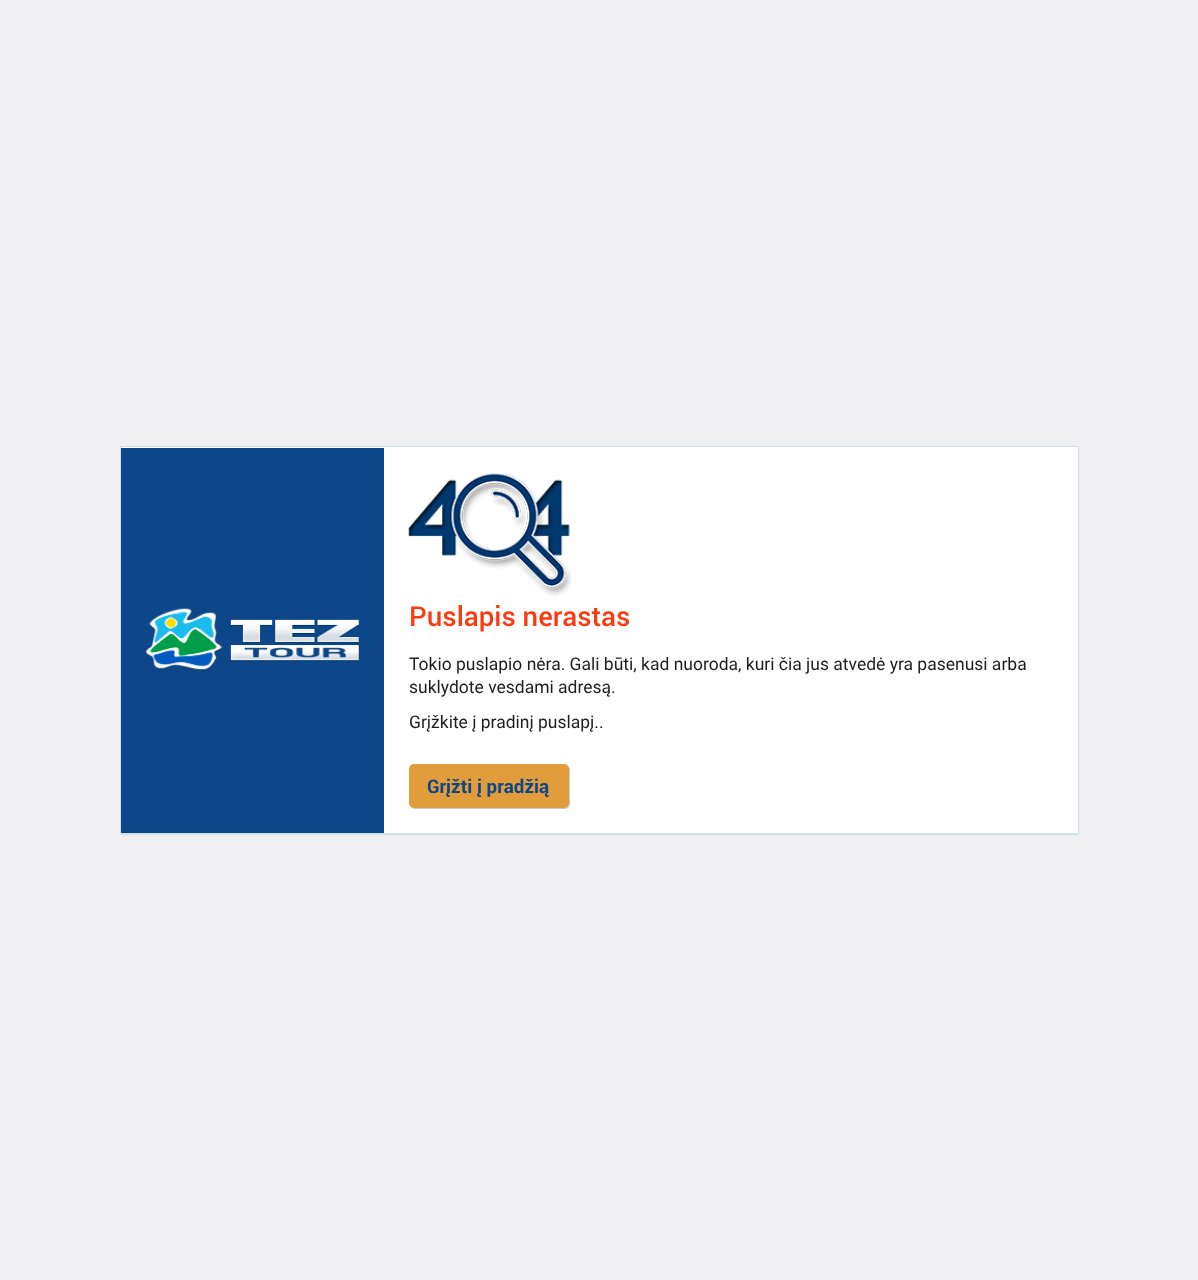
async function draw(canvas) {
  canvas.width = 1198;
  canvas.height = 1280;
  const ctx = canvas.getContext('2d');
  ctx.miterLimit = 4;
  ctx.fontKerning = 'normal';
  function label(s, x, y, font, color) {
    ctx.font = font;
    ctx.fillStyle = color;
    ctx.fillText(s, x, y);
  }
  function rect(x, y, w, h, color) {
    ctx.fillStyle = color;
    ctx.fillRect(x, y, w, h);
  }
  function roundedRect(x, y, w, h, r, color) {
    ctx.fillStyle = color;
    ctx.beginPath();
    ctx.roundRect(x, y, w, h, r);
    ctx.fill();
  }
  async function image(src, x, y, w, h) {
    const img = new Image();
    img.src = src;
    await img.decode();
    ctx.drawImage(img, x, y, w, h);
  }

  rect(0, 0, 1198, 1280, '#f0f0f3');
  ctx.fillStyle = '#cedfe6';
  ctx.filter = 'blur(1px)';
  ctx.beginPath();
  ctx.rect(121, 450, 957, 385);
  ctx.fill();
  ctx.filter = 'none';
  ctx.fillStyle = '#fff';
  ctx.beginPath();
  ctx.rect(120.5, 446.5, 958, 387);
  ctx.fill();
  ctx.strokeStyle = '#cedfe6';
  ctx.stroke();
  rect(121, 448, 263, 385, '#0d4689');
  await image('assets/img1.png', 146, 608, 213, 63);
  await image('assets/img2.png', 408, 473, 164, 123);
  label('Puslapis nerastas', 409, 626, '500 27.5px Roboto', '#fc3a0f');
  label('Tokio puslapio nėra. Gali būti, kad nuoroda, kuri čia jus atvedė yra pasenusi arba', 409, 670, '17.5px Roboto', '#1e1e1e');
  label('suklydote vesdami adresą.', 409, 693, '17.5px Roboto', '#1e1e1e');
  label('Grįžkite į pradinį puslapį..', 409, 728, '17.5px Roboto', '#1e1e1e');
  ctx.fillStyle = '#00000033';
  ctx.filter = 'blur(0.5px)';
  ctx.beginPath();
  ctx.roundRect(410, 765, 160, 44, 5);
  ctx.fill();
  ctx.filter = 'none';
  roundedRect(409, 764, 160, 44, 5, '#e19c3c');
  label('Grįžti į pradžią', 427, 793, 'bold 18.75px Roboto', '#0d4689');
}

draw(document.querySelector('canvas'));
